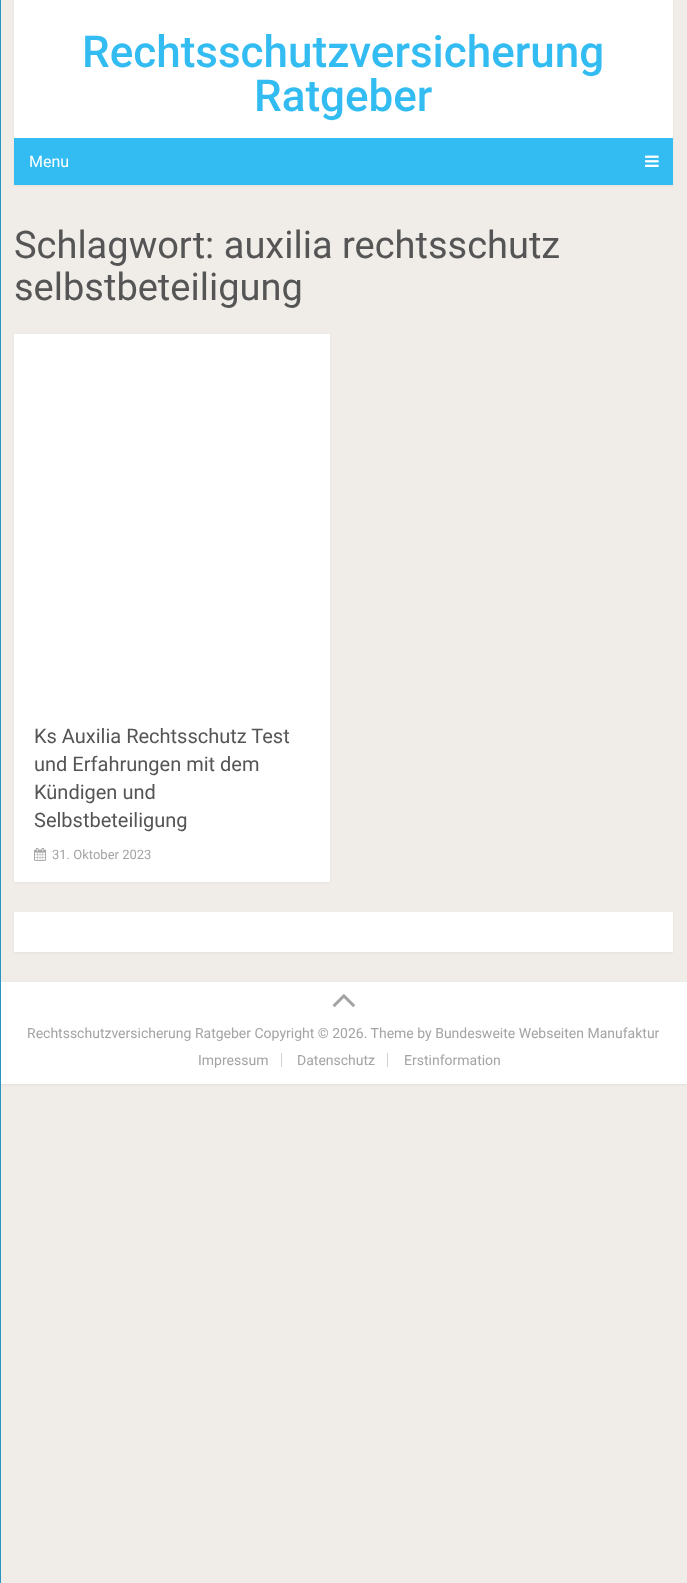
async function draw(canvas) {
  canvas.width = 687;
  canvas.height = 1583;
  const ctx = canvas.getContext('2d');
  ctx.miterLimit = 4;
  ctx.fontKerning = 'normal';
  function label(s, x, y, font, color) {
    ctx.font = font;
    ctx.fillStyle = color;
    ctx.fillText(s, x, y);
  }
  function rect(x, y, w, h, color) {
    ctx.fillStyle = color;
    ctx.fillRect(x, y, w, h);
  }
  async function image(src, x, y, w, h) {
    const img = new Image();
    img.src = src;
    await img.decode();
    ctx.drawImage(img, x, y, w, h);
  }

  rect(0, 0, 687, 1583, '#f0ede9');
  ctx.fillStyle = '#0000000d';
  ctx.filter = 'blur(1px)';
  ctx.beginPath();
  ctx.rect(14, 1, 659, 185);
  ctx.fill();
  ctx.filter = 'none';
  rect(14, 0, 659, 138, '#fff');
  label('Rechtsschutzversicherung', 82, 67, '500 44px Roboto', '#33bcf2');
  label('Ratgeber', 254, 111, '500 44px Roboto', '#33bcf2');
  rect(14, 138, 659, 47, '#33bcf2');
  ctx.fillStyle = '#0000000d';
  ctx.filter = 'blur(1px)';
  ctx.beginPath();
  ctx.rect(0, 983, 687, 102);
  ctx.fill();
  ctx.filter = 'none';
  rect(0, 0, 1, 1583, '#2996c2');
  label('Menu', 29, 167, '16px Roboto', '#fff');
  await image('assets/img1.png', 645, 155, 14, 12);
  label('Schlagwort: auxilia rechtsschutz', 14, 258, '38px Roboto', '#555');
  label('selbstbeteiligung', 14, 300, '38px Roboto', '#555');
  ctx.fillStyle = '#0000000d';
  ctx.filter = 'blur(1px)';
  ctx.beginPath();
  ctx.rect(14, 335, 316, 548);
  ctx.fill();
  ctx.filter = 'none';
  rect(14, 334, 316, 548, '#fff');
  label('Ks Auxilia Rechtsschutz Test', 34, 743, '20px Roboto', '#555');
  label('und Erfahrungen mit dem', 34, 771, '20px Roboto', '#555');
  label('Kündigen und', 34, 799, '20px Roboto', '#555');
  label('Selbstbeteiligung', 34, 827, '20px Roboto', '#555');
  await image('assets/img2.png', 34, 847, 13, 14);
  label('31. Oktober 2023', 52, 859, '13px Roboto', '#a4a4a4');
  ctx.fillStyle = '#0000000d';
  ctx.filter = 'blur(1px)';
  ctx.beginPath();
  ctx.rect(14, 913, 659, 40);
  ctx.fill();
  ctx.filter = 'none';
  rect(14, 912, 659, 40, '#fff');
  rect(1, 982, 686, 102, '#fff');
  await image('assets/img3.png', 332, 994, 23, 13);
  label('Rechtsschutzversicherung Ratgeber Copyright © 2026. Theme by Bundesweite Webseiten Manufaktur', 27, 1038, '14px Roboto', '#a4a4a4');
  rect(281, 1053, 1, 14, '#d2d2d2');
  label('Impressum', 198, 1065, '14px Roboto', '#a4a4a4');
  rect(387, 1053, 1, 14, '#d2d2d2');
  label('Datenschutz', 297, 1065, '14px Roboto', '#a4a4a4');
  label('Erstinformation', 404, 1065, '14px Roboto', '#a4a4a4');
}

draw(document.querySelector('canvas'));
